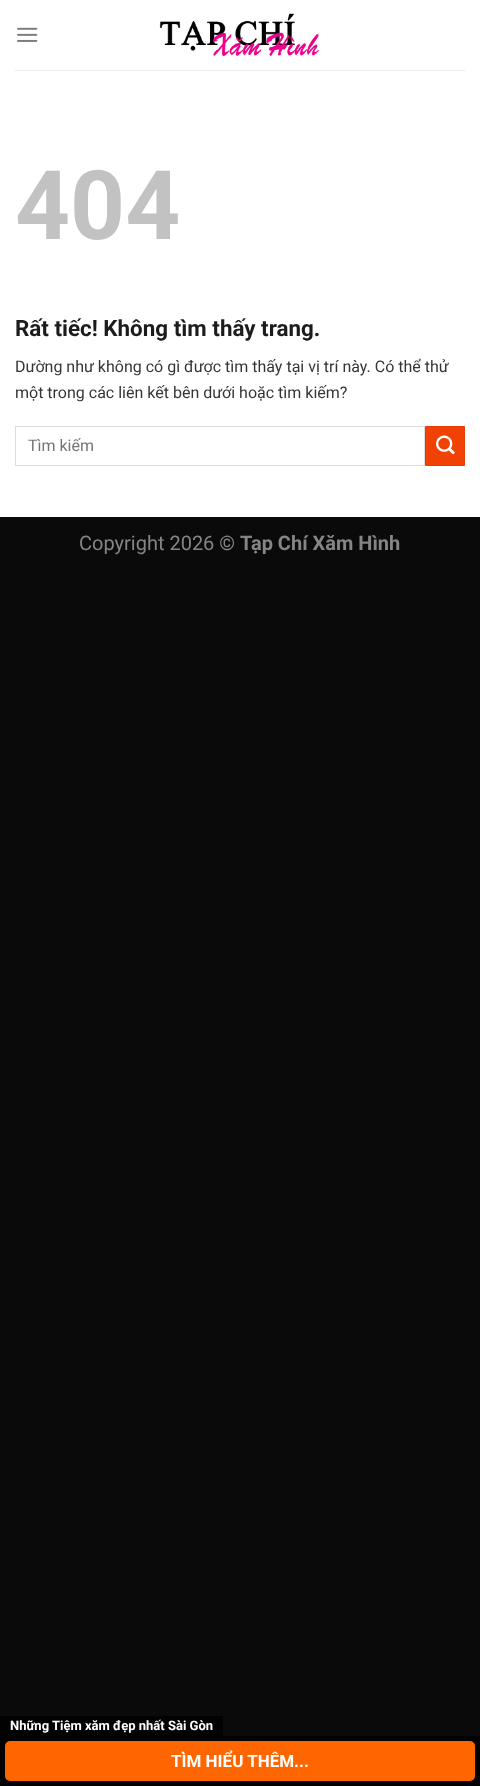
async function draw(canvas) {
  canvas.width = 480;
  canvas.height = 1786;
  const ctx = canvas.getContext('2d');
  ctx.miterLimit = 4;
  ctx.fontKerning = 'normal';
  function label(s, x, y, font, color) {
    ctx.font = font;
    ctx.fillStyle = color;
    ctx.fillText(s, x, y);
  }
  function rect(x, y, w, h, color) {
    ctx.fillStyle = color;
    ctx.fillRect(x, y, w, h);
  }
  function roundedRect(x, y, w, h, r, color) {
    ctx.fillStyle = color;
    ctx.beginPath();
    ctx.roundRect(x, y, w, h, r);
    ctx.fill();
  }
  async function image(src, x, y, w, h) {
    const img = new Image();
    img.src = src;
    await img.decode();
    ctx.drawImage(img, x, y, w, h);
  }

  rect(0, 0, 480, 1786, '#0a0a0a');
  rect(0, 0, 480, 517, '#fff');
  await image('assets/img1.png', 17, 27, 21, 15);
  await image('assets/img2.png', 159, 13, 160, 43);
  rect(15, 70, 450, 1, '#ebebeb');
  label('404', 15, 239, 'bold 96px Roboto', '#c2c2c2');
  label('Rất tiếc! Không tìm thấy trang.', 15, 336, 'bold 22.4px Roboto', '#1c1c1c');
  label('Dường như không có gì được tìm thấy tại vị trí này. Có thể thử', 15, 372, '16px Roboto', '#353535');
  label('một trong các liên kết bên dưới hoặc tìm kiếm?', 15, 398, '16px Roboto', '#353535');
  ctx.strokeStyle = '#ddd';
  ctx.strokeRect(15.5, 426.5, 409, 39);
  label('Tìm kiếm', 28, 451, '16px Roboto', '#757575');
  ctx.fillStyle = '#f14203';
  ctx.beginPath();
  ctx.rect(425.5, 426.5, 39, 39);
  ctx.fill();
  ctx.strokeStyle = '#e53f03';
  ctx.stroke();
  await image('assets/img3.png', 436, 435, 19, 20);
  label('Copyright 2026 ©', 79, 550, '20px Roboto', '#858585');
  label('Tạp Chí Xăm Hình', 240, 550, 'bold 20px Roboto', '#858585');
  rect(0, 1736, 480, 50, '#020202');
  rect(0, 1716, 223, 20, '#020202');
  label('Những Tiệm xăm đẹp nhất Sài Gòn', 10, 1730, 'bold 13px Roboto', '#fff');
  roundedRect(5, 1741, 470, 40, 5, '#f60');
  label('TÌM HIỂU THÊM...', 171, 1767, 'bold 17px Roboto', '#fff');
}

draw(document.querySelector('canvas'));
